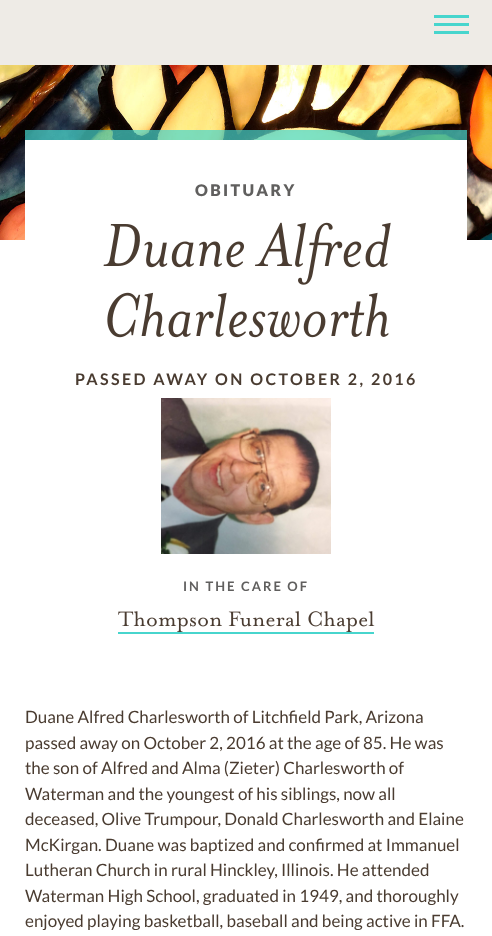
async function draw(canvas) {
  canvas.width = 492;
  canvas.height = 936;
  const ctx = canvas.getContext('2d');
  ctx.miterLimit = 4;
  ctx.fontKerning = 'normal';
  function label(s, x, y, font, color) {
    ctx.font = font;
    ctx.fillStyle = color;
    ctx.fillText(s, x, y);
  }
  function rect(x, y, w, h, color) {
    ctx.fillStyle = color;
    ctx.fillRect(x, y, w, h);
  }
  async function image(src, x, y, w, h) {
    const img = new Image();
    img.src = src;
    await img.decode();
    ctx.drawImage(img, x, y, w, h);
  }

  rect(0, 0, 492, 936, '#fff');
  rect(0, 0, 492, 65, '#eeebe6');
  rect(434, 15, 35, 3, '#47d5cd');
  rect(434, 23, 35, 3, '#47d5cd');
  rect(434, 31, 35, 3, '#47d5cd');
  await image('assets/img1.png', 0, 65, 492, 175);
  rect(25, 140, 442, 100, '#fff');
  rect(25, 130, 442, 10, '#47d5cdb3');
  ctx.letterSpacing = '2.4px';
  label('OBITUARY', 195, 196, '900 16px Lato', '#605f5e');
  await image('assets/img2.png', 103, 222, 288, 63);
  await image('assets/img3.png', 107, 292, 282, 46);
  label('PASSED AWAY ON OCTOBER 2, 2016', 75, 385, 'bold 16px Lato', '#4a3c31');
  await image('assets/img4.png', 161, 398, 170, 156);
  ctx.letterSpacing = '2px';
  label('IN THE CARE OF', 183, 591, 'bold 13px Lato', '#605f5e');
  await image('assets/img5.png', 118, 611, 257, 21);
  rect(118, 632, 256, 2, '#47d5cd');
  ctx.letterSpacing = '0px';
  label('Duane Alfred Charlesworth of Litchfield Park, Arizona', 25, 723, '17px Lato', '#4a3c31');
  label('passed away on October 2, 2016 at the age of 85. He was', 25, 749, '17px Lato', '#4a3c31');
  label('the son of Alfred and Alma (Zieter) Charlesworth of', 25, 774, '17px Lato', '#4a3c31');
  label('Waterman and the youngest of his siblings, now all', 25, 800, '17px Lato', '#4a3c31');
  label('deceased, Olive Trumpour, Donald Charlesworth and Elaine', 25, 825, '17px Lato', '#4a3c31');
  label('McKirgan. Duane was baptized and confirmed at Immanuel', 25, 851, '17px Lato', '#4a3c31');
  label('Lutheran Church in rural Hinckley, Illinois. He attended', 25, 876, '17px Lato', '#4a3c31');
  label('Waterman High School, graduated in 1949, and thoroughly', 25, 902, '17px Lato', '#4a3c31');
  label('enjoyed playing basketball, baseball and being active in FFA.', 25, 927, '17px Lato', '#4a3c31');
}

draw(document.querySelector('canvas'));
